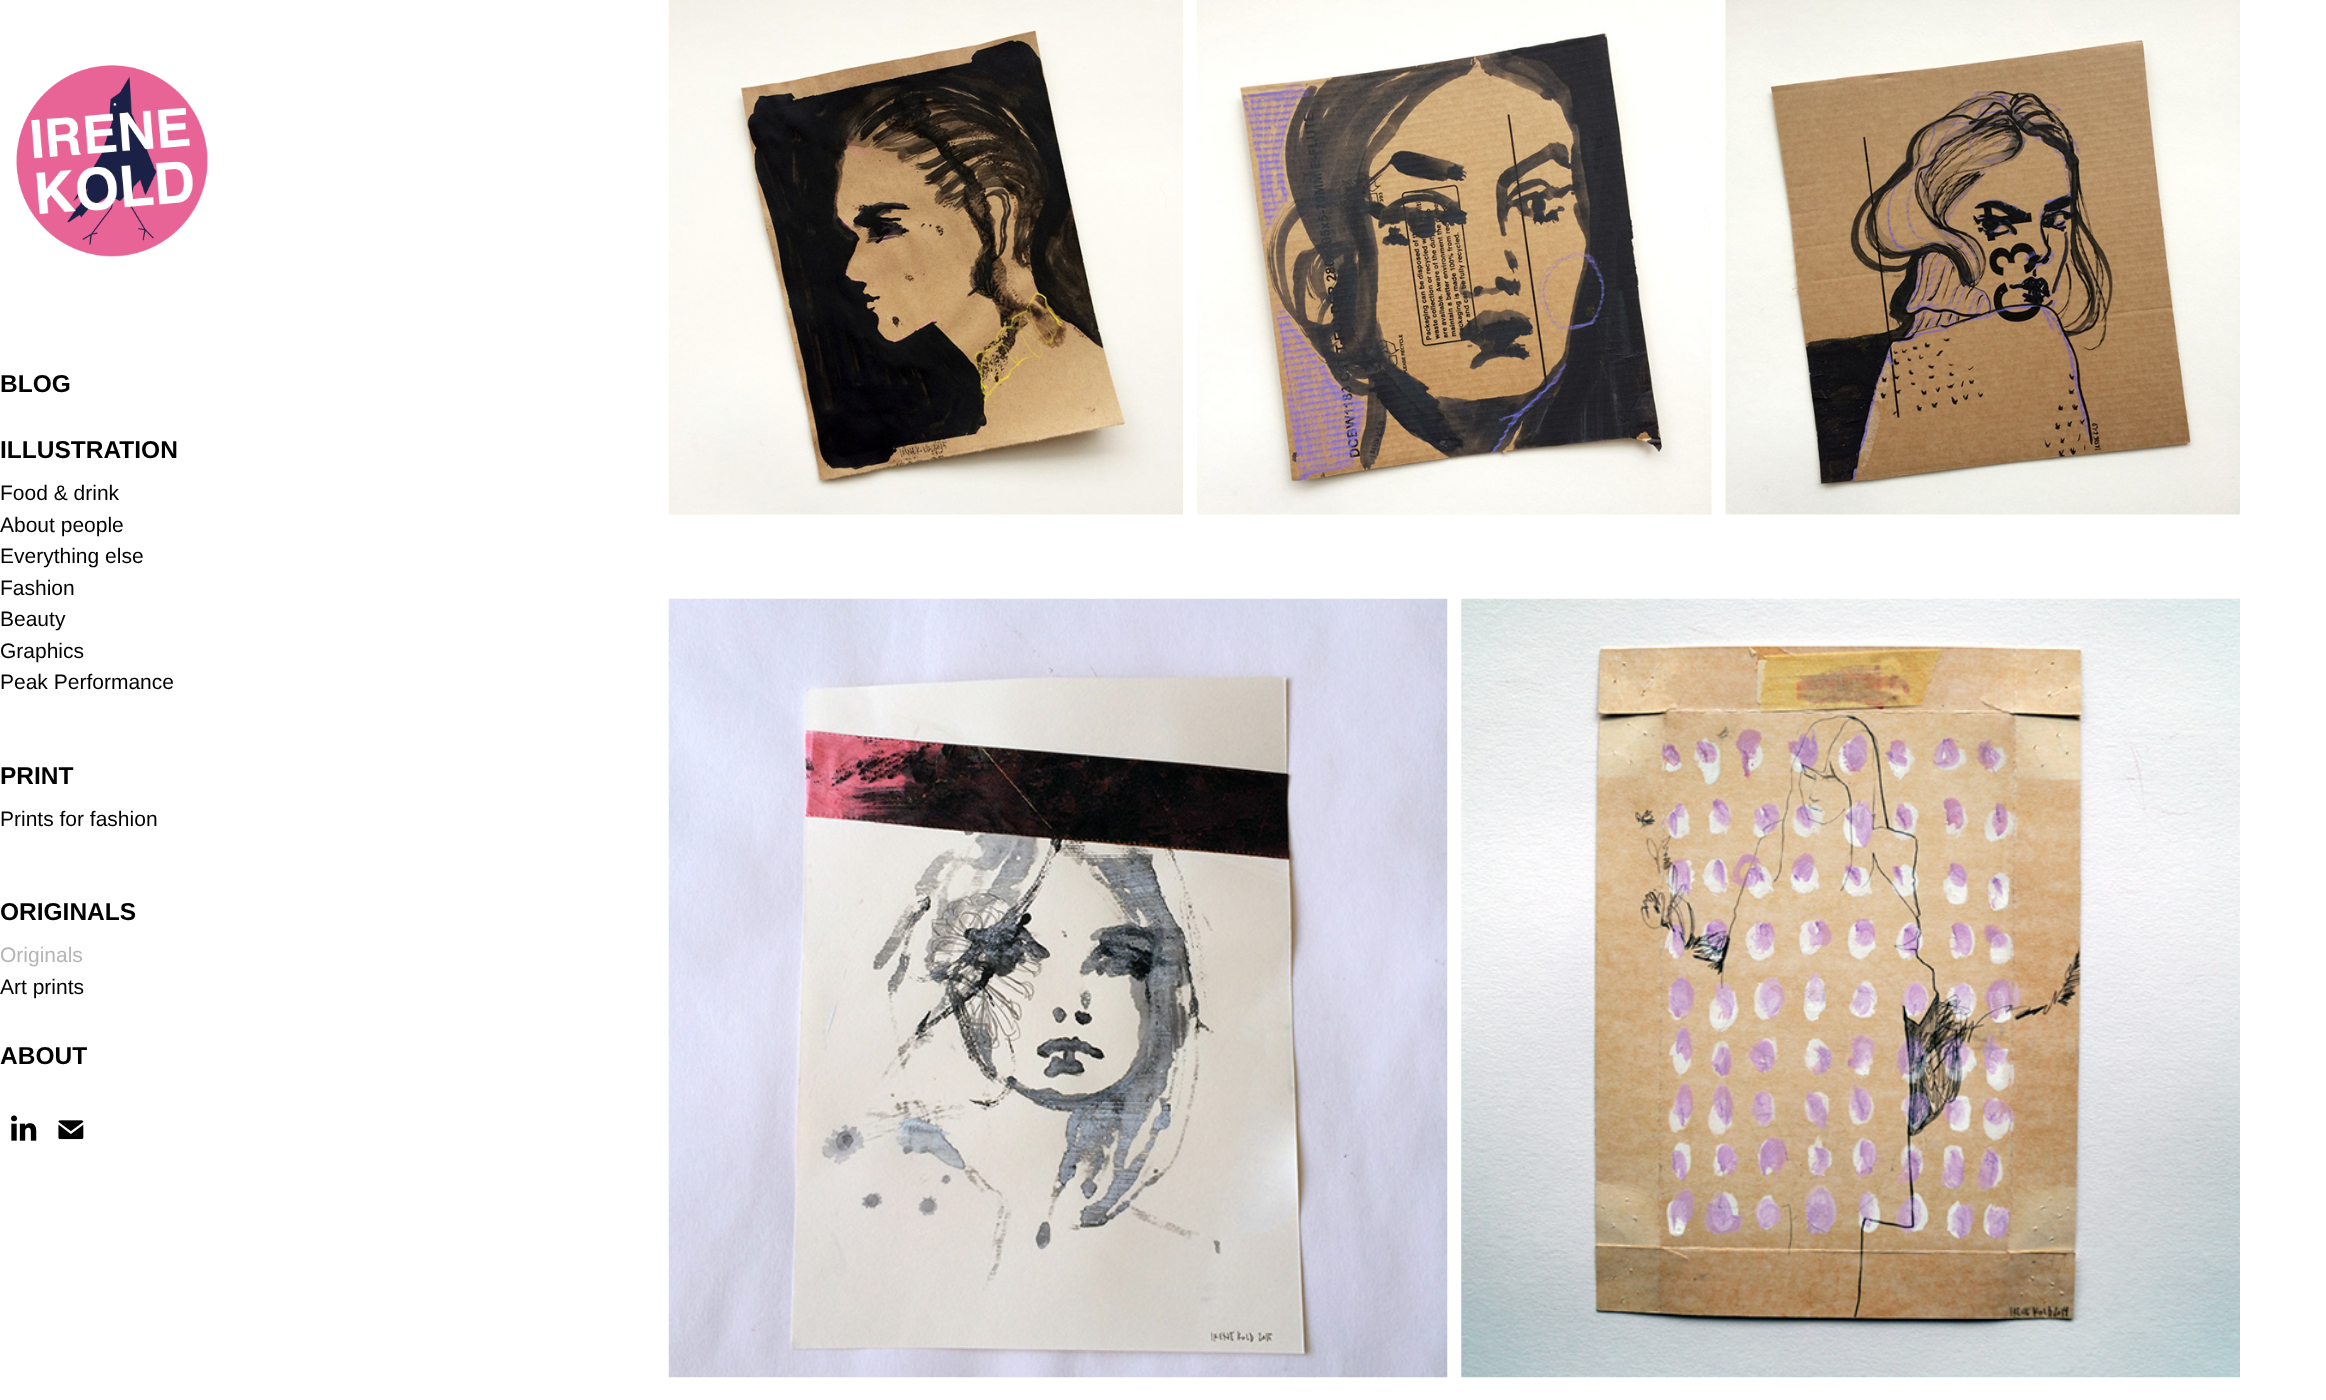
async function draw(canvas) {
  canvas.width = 2326;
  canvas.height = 1400;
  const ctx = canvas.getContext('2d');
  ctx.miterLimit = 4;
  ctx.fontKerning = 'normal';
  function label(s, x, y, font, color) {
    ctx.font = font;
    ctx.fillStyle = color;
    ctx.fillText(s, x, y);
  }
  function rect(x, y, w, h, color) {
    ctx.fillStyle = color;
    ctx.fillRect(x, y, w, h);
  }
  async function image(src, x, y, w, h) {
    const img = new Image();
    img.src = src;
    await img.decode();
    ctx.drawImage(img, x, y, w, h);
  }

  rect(0, 0, 2326, 1400, '#fff');
  await image('assets/img1.png', 16, 65, 192, 192);
  label('BLOG', 0, 392, 'bold 24.5px Liberation Sans', '#000');
  label('ILLUSTRATION', 0, 458, 'bold 24.5px Liberation Sans', '#000');
  label('Food & drink', 0, 500, '21px Liberation Sans', '#000');
  label('About people', 0, 532, '21px Liberation Sans', '#000');
  label('Everything else', 0, 563, '21px Liberation Sans', '#000');
  label('Fashion', 0, 595, '21px Liberation Sans', '#000');
  label('Beauty', 0, 626, '21px Liberation Sans', '#000');
  label('Graphics', 0, 658, '21px Liberation Sans', '#000');
  label('Peak Performance', 0, 689, '21px Liberation Sans', '#000');
  label('PRINT', 0, 784, 'bold 24.5px Liberation Sans', '#000');
  label('Prints for fashion', 0, 826, '21px Liberation Sans', '#000');
  label('ORIGINALS', 0, 920, 'bold 24.5px Liberation Sans', '#000');
  label('Originals', 0, 962, '21px Liberation Sans', '#b5b5b5');
  label('Art prints', 0, 994, '21px Liberation Sans', '#000');
  label('ABOUT', 0, 1064, 'bold 24.5px Liberation Sans', '#000');
  await image('assets/img2.png', 11, 1115, 26, 26);
  await image('assets/img3.png', 58, 1120, 26, 20);
  await image('assets/img4.png', 668, 0, 515, 515);
  await image('assets/img5.png', 1197, 0, 515, 515);
  await image('assets/img6.png', 1725, 0, 515, 515);
  await image('assets/img7.png', 668, 598, 780, 780);
  await image('assets/img8.png', 1461, 598, 779, 780);
}

draw(document.querySelector('canvas'));
